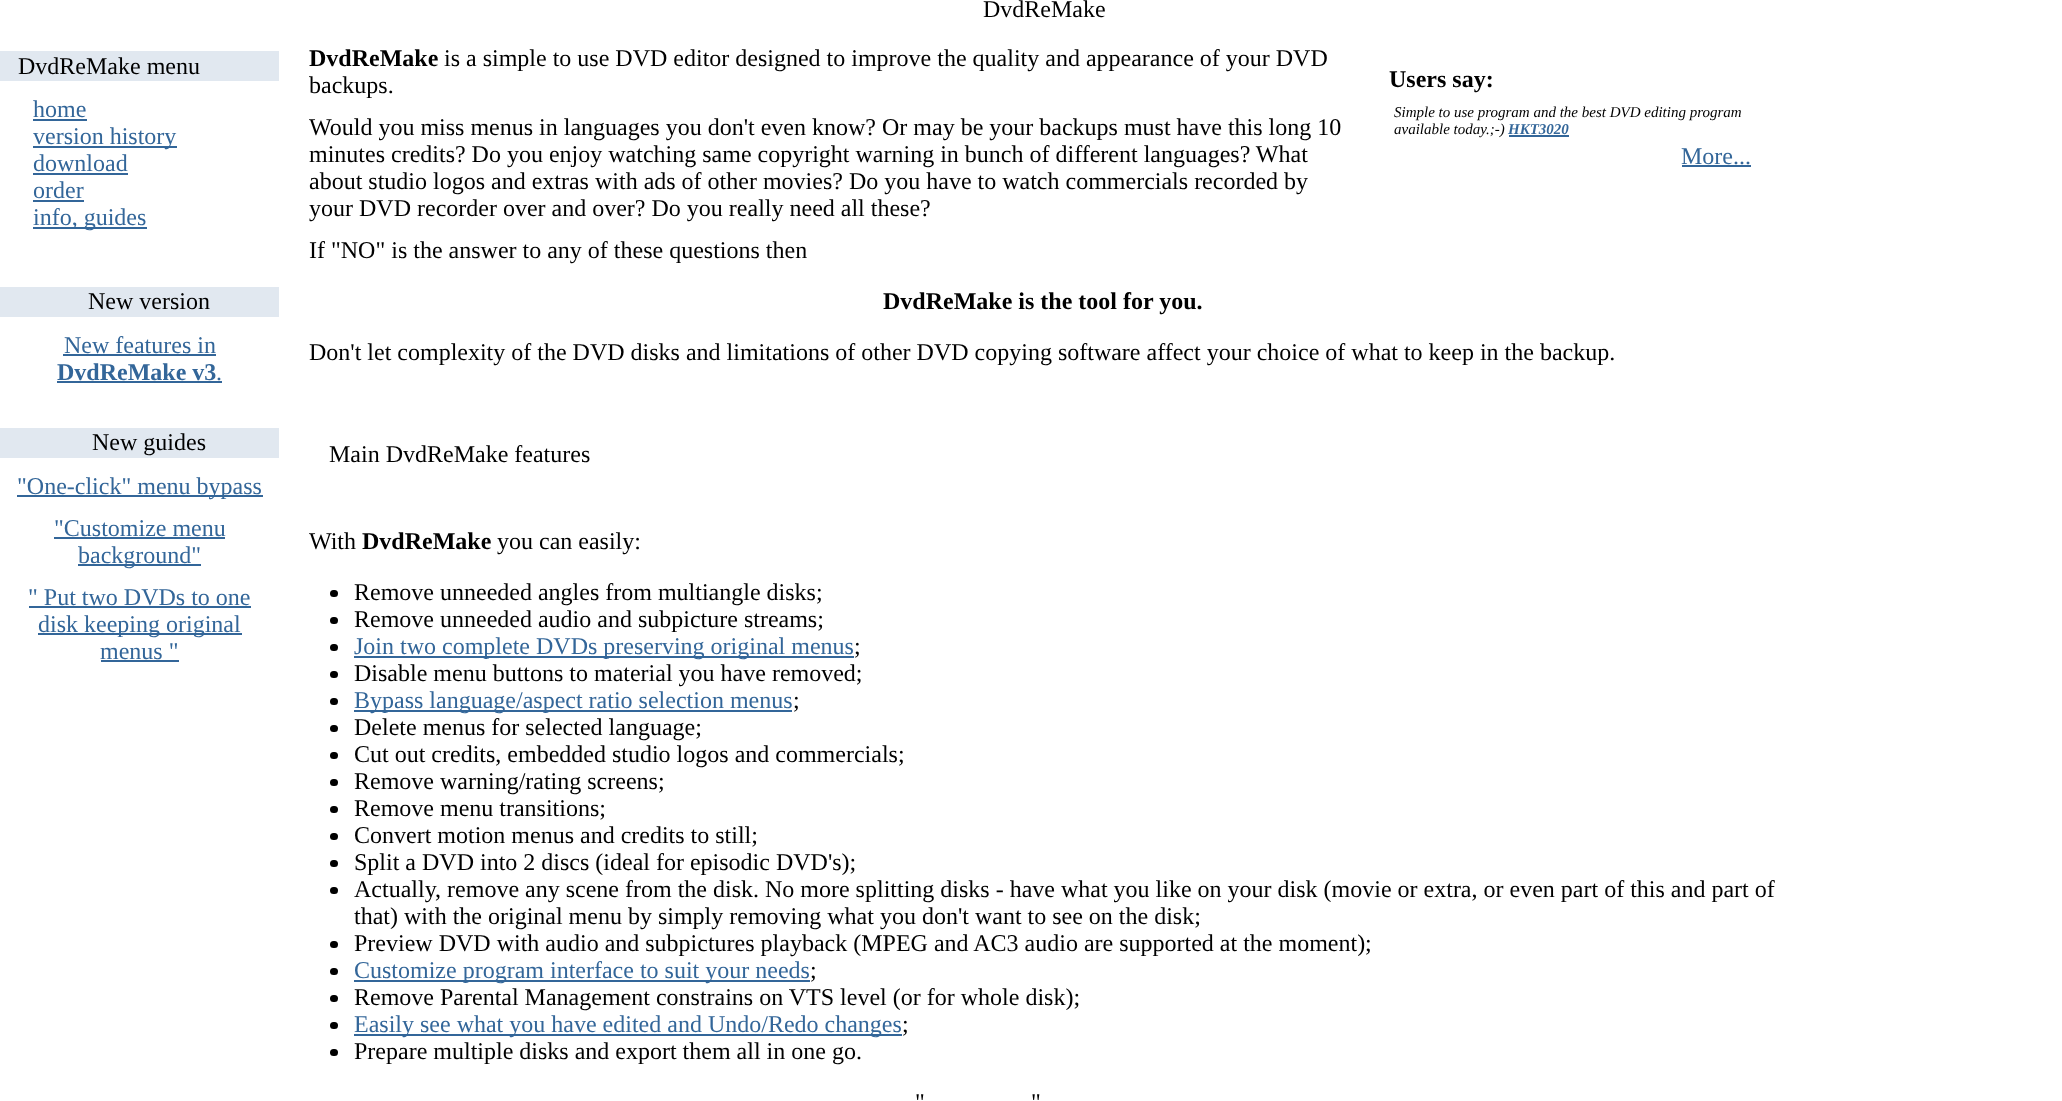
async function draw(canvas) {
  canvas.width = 2062;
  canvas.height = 1101;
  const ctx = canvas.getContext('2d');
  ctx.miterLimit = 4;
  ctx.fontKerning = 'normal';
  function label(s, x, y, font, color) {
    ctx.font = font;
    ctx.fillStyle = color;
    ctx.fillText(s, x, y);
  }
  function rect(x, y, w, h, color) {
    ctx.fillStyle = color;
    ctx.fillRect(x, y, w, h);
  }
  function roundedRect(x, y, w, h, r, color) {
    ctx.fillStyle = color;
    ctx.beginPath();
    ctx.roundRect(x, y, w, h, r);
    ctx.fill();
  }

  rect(0, 0, 2062, 1101, '#fff');
  rect(0, 51, 279, 30, '#e1e8f0');
  label('DvdReMake menu', 18, 74, '24px Liberation Serif', '#000');
  label('home', 33, 117, '24px Liberation Serif', '#369');
  rect(33, 119, 54, 2, '#369');
  rect(33, 146, 144, 2, '#369');
  label('version history', 33, 144, '24px Liberation Serif', '#369');
  label('download', 33, 171, '24px Liberation Serif', '#369');
  rect(33, 173, 95, 2, '#369');
  label('order', 33, 198, '24px Liberation Serif', '#369');
  rect(33, 200, 51, 2, '#369');
  rect(33, 227, 114, 2, '#369');
  label('info, guides', 33, 225, '24px Liberation Serif', '#369');
  rect(0, 287, 279, 30, '#e1e8f0');
  label('New version', 88, 309, '24px Liberation Serif', '#000');
  label('New features in', 64, 353, '24px Liberation Serif', '#369');
  rect(63, 354, 153, 2, '#369');
  label('DvdReMake v3', 57, 380, 'bold 24px Liberation Serif', '#369');
  label('.', 216, 380, '24px Liberation Serif', '#369');
  rect(57, 381, 165, 2, '#369');
  rect(0, 428, 279, 30, '#e1e8f0');
  label('New guides', 92, 450, '24px Liberation Serif', '#000');
  rect(17, 495, 246, 2, '#369');
  label('"One-click" menu bypass', 17, 494, '24px Liberation Serif', '#369');
  label('"Customize menu', 54, 536, '24px Liberation Serif', '#369');
  rect(54, 537, 171, 2, '#369');
  rect(78, 564, 123, 2, '#369');
  label('background"', 78, 563, '24px Liberation Serif', '#369');
  label('" Put two DVDs to one', 28, 605, '24px Liberation Serif', '#369');
  rect(29, 606, 222, 2, '#369');
  rect(38, 633, 204, 2, '#369');
  label('disk keeping original', 38, 632, '24px Liberation Serif', '#369');
  label('menus "', 100, 659, '24px Liberation Serif', '#369');
  rect(101, 660, 78, 2, '#369');
  label('DvdReMake', 983, 17, '24px Liberation Serif', '#000');
  label('DvdReMake', 309, 66, 'bold 24px Liberation Serif', '#000');
  label('is a simple to use DVD editor designed to improve the quality and appearance of your DVD', 444, 66, '24px Liberation Serif', '#000');
  label('backups.', 309, 93, '24px Liberation Serif', '#000');
  label('Users say:', 1389, 87, 'bold 24px Liberation Serif', '#000');
  label('Simple to use program and the best DVD editing program', 1394, 117, 'italic 15px Liberation Serif', '#000');
  label('available today.;-)', 1394, 134, 'italic 15px Liberation Serif', '#000');
  label('HKT3020', 1508, 134, 'italic bold 15px Liberation Serif', '#369');
  rect(1509, 135, 60, 2, '#369');
  label('More...', 1681, 164, '24px Liberation Serif', '#369');
  rect(1682, 165, 69, 2, '#369');
  label('Would you miss menus in languages you don\'t even know? Or may be your backups must have this long 10', 309, 135, '24px Liberation Serif', '#000');
  label('minutes credits? Do you enjoy watching same copyright warning in bunch of different languages? What', 309, 162, '24px Liberation Serif', '#000');
  label('about studio logos and extras with ads of other movies? Do you have to watch commercials recorded by', 309, 189, '24px Liberation Serif', '#000');
  label('your DVD recorder over and over? Do you really need all these?', 309, 216, '24px Liberation Serif', '#000');
  label('If "NO" is the answer to any of these questions then', 309, 258, '24px Liberation Serif', '#000');
  label('DvdReMake is the tool for you.', 883, 309, 'bold 24px Liberation Serif', '#000');
  label('Don\'t let complexity of the DVD disks and limitations of other DVD copying software affect your choice of what to keep in the backup.', 309, 360, '24px Liberation Serif', '#000');
  label('Main DvdReMake features', 329, 462, '24px Liberation Serif', '#000');
  label('With', 309, 549, '24px Liberation Serif', '#000');
  label('DvdReMake', 362, 549, 'bold 24px Liberation Serif', '#000');
  label('you can easily:', 497, 549, '24px Liberation Serif', '#000');
  roundedRect(330, 590, 8, 7, 3.5, '#000');
  label('Remove unneeded angles from multiangle disks;', 354, 600, '24px Liberation Serif', '#000');
  roundedRect(330, 617, 8, 7, 3.5, '#000');
  label('Remove unneeded audio and subpicture streams;', 354, 627, '24px Liberation Serif', '#000');
  roundedRect(330, 644, 8, 7, 3.5, '#000');
  rect(354, 656, 500, 2, '#369');
  label('Join two complete DVDs preserving original menus', 354, 654, '24px Liberation Serif', '#369');
  label(';', 854, 654, '24px Liberation Serif', '#000');
  roundedRect(330, 671, 8, 7, 3.5, '#000');
  label('Disable menu buttons to material you have removed;', 354, 681, '24px Liberation Serif', '#000');
  roundedRect(330, 698, 8, 7, 3.5, '#000');
  rect(354, 710, 438, 2, '#369');
  label('Bypass language/aspect ratio selection menus', 354, 708, '24px Liberation Serif', '#369');
  label(';', 793, 708, '24px Liberation Serif', '#000');
  roundedRect(330, 725, 8, 7, 3.5, '#000');
  label('Delete menus for selected language;', 354, 735, '24px Liberation Serif', '#000');
  roundedRect(330, 752, 8, 7, 3.5, '#000');
  label('Cut out credits, embedded studio logos and commercials;', 354, 762, '24px Liberation Serif', '#000');
  roundedRect(330, 779, 8, 7, 3.5, '#000');
  label('Remove warning/rating screens;', 354, 789, '24px Liberation Serif', '#000');
  roundedRect(330, 806, 8, 7, 3.5, '#000');
  label('Remove menu transitions;', 354, 816, '24px Liberation Serif', '#000');
  roundedRect(330, 833, 8, 7, 3.5, '#000');
  label('Convert motion menus and credits to still;', 354, 843, '24px Liberation Serif', '#000');
  roundedRect(330, 860, 8, 7, 3.5, '#000');
  label('Split a DVD into 2 discs (ideal for episodic DVD\'s);', 354, 870, '24px Liberation Serif', '#000');
  roundedRect(330, 887, 8, 7, 3.5, '#000');
  label('Actually, remove any scene from the disk. No more splitting disks - have what you like on your disk (movie or extra, or even part of this and part of', 354, 897, '24px Liberation Serif', '#000');
  label('that) with the original menu by simply removing what you don\'t want to see on the disk;', 354, 924, '24px Liberation Serif', '#000');
  roundedRect(330, 941, 8, 7, 3.5, '#000');
  label('Preview DVD with audio and subpictures playback (MPEG and AC3 audio are supported at the moment);', 354, 951, '24px Liberation Serif', '#000');
  roundedRect(330, 968, 8, 7, 3.5, '#000');
  rect(354, 980, 456, 2, '#369');
  label('Customize program interface to suit your needs', 354, 978, '24px Liberation Serif', '#369');
  label(';', 810, 978, '24px Liberation Serif', '#000');
  roundedRect(330, 995, 8, 7, 3.5, '#000');
  label('Remove Parental Management constrains on VTS level (or for whole disk);', 354, 1005, '24px Liberation Serif', '#000');
  roundedRect(330, 1022, 8, 7, 3.5, '#000');
  rect(354, 1034, 548, 2, '#369');
  label('Easily see what you have edited and Undo/Redo changes', 354, 1032, '24px Liberation Serif', '#369');
  label(';', 902, 1032, '24px Liberation Serif', '#000');
  roundedRect(330, 1049, 8, 7, 3.5, '#000');
  label('Prepare multiple disks and export them all in one go.', 354, 1059, '24px Liberation Serif', '#000');
  label('"', 915, 1110, '24px Liberation Serif', '#000');
  label('"', 1031, 1110, '24px Liberation Serif', '#000');
}

draw(document.querySelector('canvas'));
